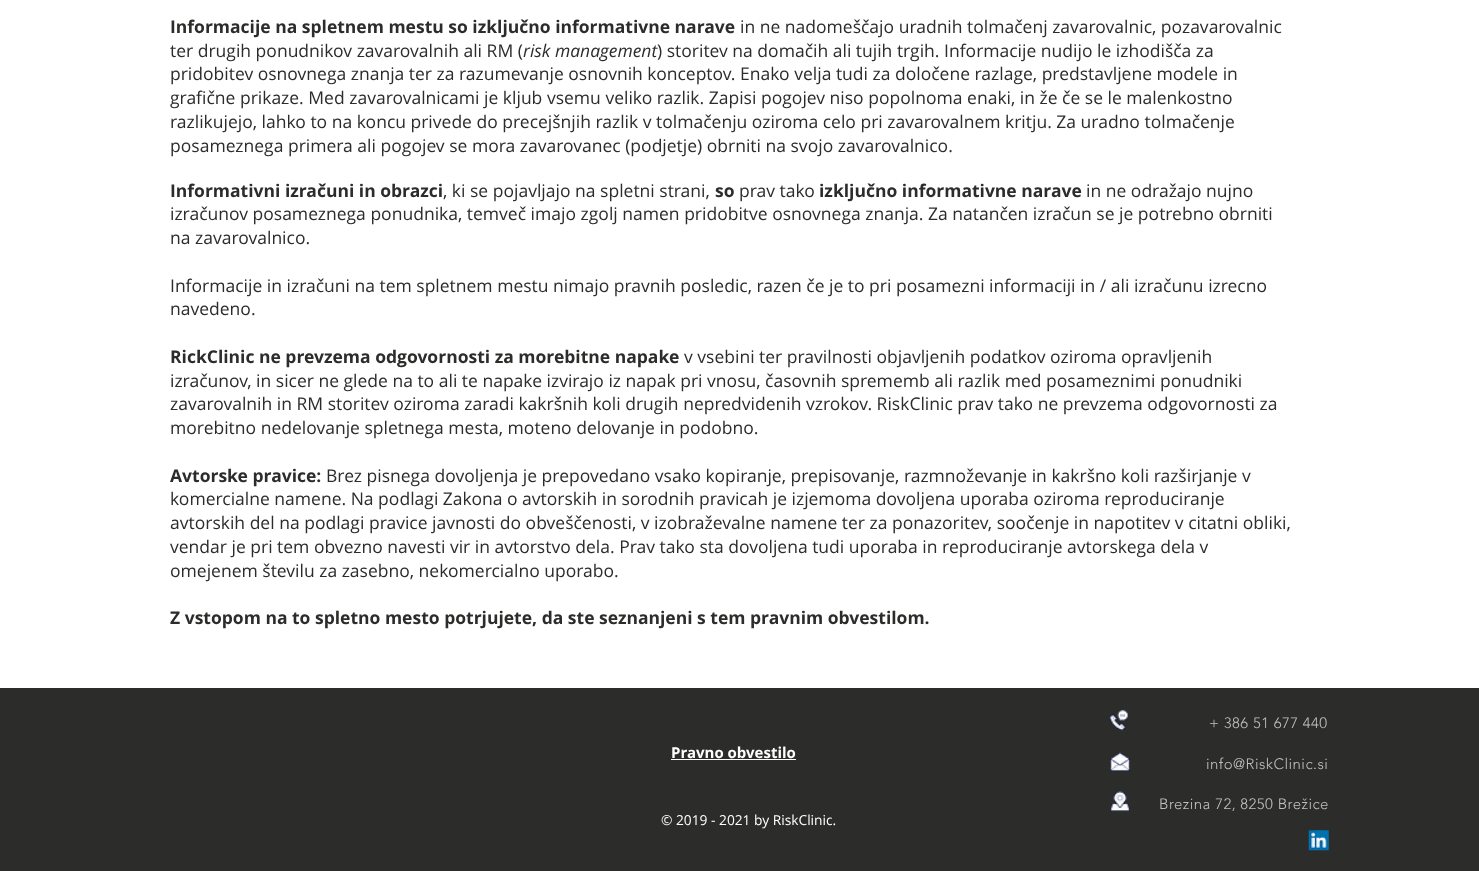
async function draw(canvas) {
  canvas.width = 1479;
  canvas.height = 871;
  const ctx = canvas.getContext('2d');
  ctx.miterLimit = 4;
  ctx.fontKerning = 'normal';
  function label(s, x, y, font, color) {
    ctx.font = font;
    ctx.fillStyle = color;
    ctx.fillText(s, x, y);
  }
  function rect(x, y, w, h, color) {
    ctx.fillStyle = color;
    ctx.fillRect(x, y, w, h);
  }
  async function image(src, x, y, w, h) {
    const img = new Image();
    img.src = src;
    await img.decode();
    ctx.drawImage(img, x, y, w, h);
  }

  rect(0, 0, 1479, 871, '#fff');
  label('Informacije na spletnem mestu so izključno informativne narave', 170, 33, 'bold 17.5px Open Sans', '#2c2c2b');
  label('in ne nadomeščajo uradnih tolmačenj zavarovalnic, pozavarovalnic', 740, 33, '17.5px Open Sans', '#2c2c2b');
  label('ter drugih ponudnikov zavarovalnih ali RM (', 170, 57, '17.5px Open Sans', '#2c2c2b');
  label('risk management', 523, 57, 'italic 17.5px Open Sans', '#2c2c2b');
  label(') storitev na domačih ali tujih trgih. Informacije nudijo le izhodišča za', 657, 57, '17.5px Open Sans', '#2c2c2b');
  label('pridobitev osnovnega znanja ter za razumevanje osnovnih konceptov. Enako velja tudi za določene razlage, predstavljene modele in', 170, 80, '17.5px Open Sans', '#2c2c2b');
  label('grafične prikaze. Med zavarovalnicami je kljub vsemu veliko razlik. Zapisi pogojev niso popolnoma enaki, in že če se le malenkostno', 170, 104, '17.5px Open Sans', '#2c2c2b');
  label('razlikujejo, lahko to na koncu privede do precejšnjih razlik v tolmačenju oziroma celo pri zavarovalnem kritju. Za uradno tolmačenje', 170, 128, '17.5px Open Sans', '#2c2c2b');
  label('posameznega primera ali pogojev se mora zavarovanec (podjetje) obrniti na svojo zavarovalnico.', 170, 152, '17.5px Open Sans', '#2c2c2b');
  label('Informativni izračuni in obrazci', 170, 197, 'bold 17.5px Open Sans', '#2c2c2b');
  label(', ki se pojavljajo na spletni strani,', 443, 197, '17.5px Open Sans', '#2c2c2b');
  label('so', 715, 197, 'bold 17.5px Open Sans', '#2c2c2b');
  label('prav tako', 739, 197, '17.5px Open Sans', '#2c2c2b');
  label('izključno informativne narave', 819, 197, 'bold 17.5px Open Sans', '#2c2c2b');
  label('in ne odražajo nujno', 1086, 197, '17.5px Open Sans', '#2c2c2b');
  label('izračunov posameznega ponudnika, temveč imajo zgolj namen pridobitve osnovnega znanja. Za natančen izračun se je potrebno obrniti', 170, 220, '17.5px Open Sans', '#2c2c2b');
  label('na zavarovalnico.', 170, 244, '17.5px Open Sans', '#2c2c2b');
  label('Informacije in izračuni na tem spletnem mestu nimajo pravnih posledic, razen če je to pri posamezni informaciji in / ali izračunu izrecno', 170, 292, '17.5px Open Sans', '#2c2c2b');
  label('navedeno.', 170, 315, '17.5px Open Sans', '#2c2c2b');
  label('RickClinic ne prevzema odgovornosti za morebitne napake', 170, 363, 'bold 17.5px Open Sans', '#2c2c2b');
  label('v vsebini ter pravilnosti objavljenih podatkov oziroma opravljenih', 684, 363, '17.5px Open Sans', '#2c2c2b');
  label('izračunov, in sicer ne glede na to ali te napake izvirajo iz napak pri vnosu, časovnih sprememb ali razlik med posameznimi ponudniki', 170, 387, '17.5px Open Sans', '#2c2c2b');
  label('zavarovalnih in RM storitev oziroma zaradi kakršnih koli drugih nepredvidenih vzrokov. RiskClinic prav tako ne prevzema odgovornosti za', 170, 410, '17.5px Open Sans', '#2c2c2b');
  label('morebitno nedelovanje spletnega mesta, moteno delovanje in podobno.', 170, 434, '17.5px Open Sans', '#2c2c2b');
  label('Avtorske pravice:', 170, 482, 'bold 17.5px Open Sans', '#2c2c2b');
  label('Brez pisnega dovoljenja je prepovedano vsako kopiranje, prepisovanje, razmnoževanje in kakršno koli razširjanje v', 326, 482, '17.5px Open Sans', '#2c2c2b');
  label('komercialne namene. Na podlagi Zakona o avtorskih in sorodnih pravicah je izjemoma dovoljena uporaba oziroma reproduciranje', 170, 505, '17.5px Open Sans', '#2c2c2b');
  label('avtorskih del na podlagi pravice javnosti do obveščenosti, v izobraževalne namene ter za ponazoritev, soočenje in napotitev v citatni obliki,', 170, 529, '17.5px Open Sans', '#2c2c2b');
  label('vendar je pri tem obvezno navesti vir in avtorstvo dela. Prav tako sta dovoljena tudi uporaba in reproduciranje avtorskega dela v', 170, 553, '17.5px Open Sans', '#2c2c2b');
  label('omejenem številu za zasebno, nekomercialno uporabo.', 170, 577, '17.5px Open Sans', '#2c2c2b');
  label('Z vstopom na to spletno mesto potrjujete, da ste seznanjeni s tem pravnim obvestilom.', 170, 624, 'bold 17.5px Open Sans', '#2c2c2b');
  rect(0, 688, 1479, 183, '#2c2c2b');
  label('Pravno obvestilo', 671, 758, 'bold 15px Open Sans', '#fff');
  rect(671, 759, 125, 1, '#fff');
  await image('assets/img1.png', 1109, 710, 20, 21);
  ctx.letterSpacing = '0.45px';
  label('+ 386 51 677 440', 1209, 728, '300 15px "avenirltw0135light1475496"', '#c0c0be');
  await image('assets/img2.png', 1110, 752, 21, 20);
  label('info@RiskClinic.si', 1206, 769, '300 15px "avenirltw0135light1475496"', '#c0c0be');
  await image('assets/img3.png', 1110, 791, 20, 21);
  label('Brezina 72, 8250 Brežice', 1159, 809, '300 15px "avenirltw0135light1475496"', '#c0c0be');
  await image('assets/img4.png', 1308, 830, 21, 21);
  ctx.letterSpacing = '0px';
  label('© 2019 - 2021 by RiskClinic.', 661, 825, '13.75px Open Sans', '#fff');
}

draw(document.querySelector('canvas'));
